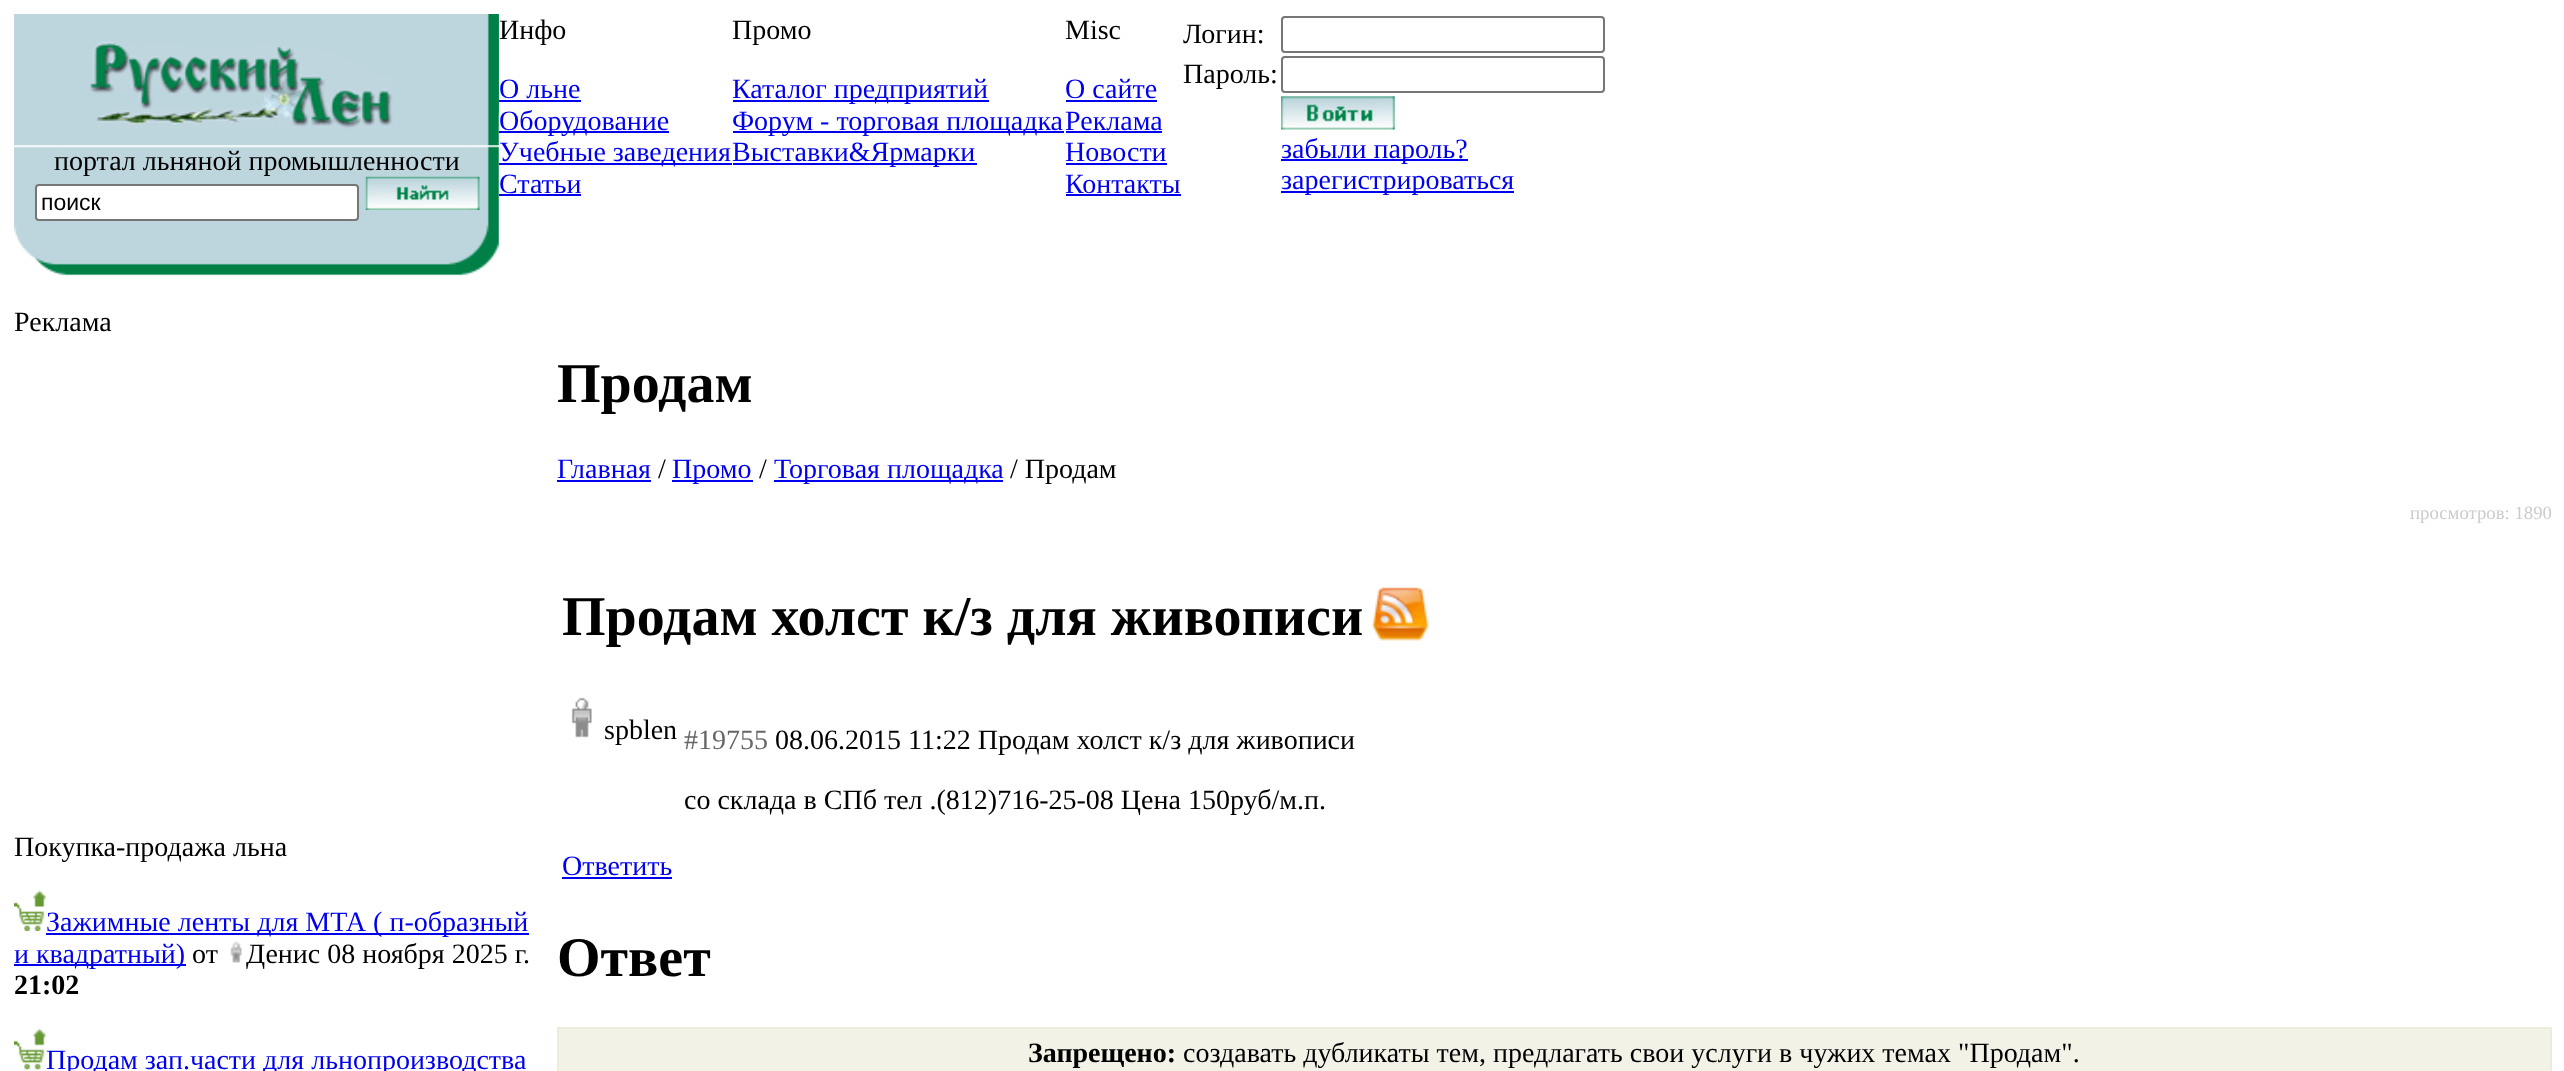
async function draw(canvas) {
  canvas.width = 2564;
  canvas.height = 1071;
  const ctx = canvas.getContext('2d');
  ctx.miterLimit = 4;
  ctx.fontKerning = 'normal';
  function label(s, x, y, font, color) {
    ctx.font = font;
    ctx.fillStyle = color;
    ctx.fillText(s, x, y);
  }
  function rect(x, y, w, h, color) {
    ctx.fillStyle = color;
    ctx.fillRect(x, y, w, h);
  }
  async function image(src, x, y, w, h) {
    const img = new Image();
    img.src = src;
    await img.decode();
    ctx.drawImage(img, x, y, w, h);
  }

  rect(0, 0, 2564, 1071, '#fff');
  await image('assets/img1.png', 14, 14, 485, 264);
  await image('assets/img2.png', 14, 14, 485, 132);
  label('портал льняной промышленности', 54, 170, '28px Liberation Serif', '#000');
  ctx.fillStyle = '#fff';
  ctx.beginPath();
  ctx.roundRect(36, 185, 322, 35, 3);
  ctx.fill();
  ctx.strokeStyle = '#767676';
  ctx.lineWidth = 2;
  ctx.stroke();
  label('поиск', 41, 210, '23px Liberation Sans', '#000');
  await image('assets/img3.png', 365, 176, 115, 34);
  label('Инфо', 499, 39, '28px Liberation Serif', '#000');
  label('О льне', 499, 98, '28px Liberation Serif', '#00e');
  rect(499, 100, 82, 2, '#00e');
  rect(499, 131, 170, 2, '#00e');
  label('Оборудование', 499, 130, '28px Liberation Serif', '#00e');
  rect(499, 163, 233, 2, '#00e');
  label('Учебные заведения', 499, 161, '28px Liberation Serif', '#00e');
  label('Статьи', 499, 193, '28px Liberation Serif', '#00e');
  rect(499, 194, 82, 2, '#00e');
  label('Промо', 732, 39, '28px Liberation Serif', '#000');
  rect(733, 100, 256, 2, '#00e');
  label('Каталог предприятий', 732, 98, '28px Liberation Serif', '#00e');
  rect(733, 131, 331, 2, '#00e');
  label('Форум - торговая площадка', 732, 130, '28px Liberation Serif', '#00e');
  rect(733, 163, 244, 2, '#00e');
  label('Выставки&Ярмарки', 732, 161, '28px Liberation Serif', '#00e');
  label('Misc', 1065, 39, '28px Liberation Serif', '#000');
  label('О сайте', 1065, 98, '28px Liberation Serif', '#00e');
  rect(1066, 100, 91, 2, '#00e');
  label('Реклама', 1065, 130, '28px Liberation Serif', '#00e');
  rect(1066, 131, 96, 2, '#00e');
  label('Новости', 1065, 161, '28px Liberation Serif', '#00e');
  rect(1066, 163, 101, 2, '#00e');
  label('Контакты', 1065, 193, '28px Liberation Serif', '#00e');
  rect(1066, 194, 115, 2, '#00e');
  label('Логин:', 1183, 43, '28px Liberation Serif', '#000');
  ctx.beginPath();
  ctx.roundRect(1282, 17, 322, 35, 3);
  ctx.stroke();
  label('Пароль:', 1183, 83, '28px Liberation Serif', '#000');
  ctx.beginPath();
  ctx.roundRect(1282, 57, 322, 35, 3);
  ctx.stroke();
  await image('assets/img4.png', 1281, 96, 114, 34);
  rect(1281, 159, 187, 2, '#00e');
  label('забыли пароль?', 1281, 158, '28px Liberation Serif', '#00e');
  rect(1281, 191, 233, 2, '#00e');
  label('зарегистрироваться', 1281, 189, '28px Liberation Serif', '#00e');
  label('Реклама', 14, 331, '28px Liberation Serif', '#000');
  label('Покупка-продажа льна', 14, 856, '28px Liberation Serif', '#000');
  await image('assets/img5.png', 14, 890, 32, 41);
  rect(46, 933, 483, 2, '#00e');
  label('Зажимные ленты для МТА ( п-образный', 46, 931, '28px Liberation Serif', '#00e');
  rect(14, 964, 172, 2, '#00e');
  label('и квадратный)', 14, 963, '28px Liberation Serif', '#00e');
  label('от', 192, 963, '28px Liberation Serif', '#000');
  await image('assets/img6.png', 230, 941, 12, 22);
  label('Денис 08 ноября 2025 г.', 246, 963, '28px Liberation Serif', '#000');
  label('21:02', 14, 994, 'bold 28px Liberation Serif', '#000');
  await image('assets/img7.png', 14, 1029, 32, 41);
  label('Продам зап.части для льнопроизводства', 46, 1069, '28px Liberation Serif', '#00e');
  label('Продам', 557, 402, 'bold 56px Liberation Serif', '#000');
  label('Главная', 557, 478, '28px Liberation Serif', '#00e');
  rect(557, 480, 94, 2, '#00e');
  label('/', 658, 478, '28px Liberation Serif', '#000');
  rect(672, 480, 81, 2, '#00e');
  label('Промо', 672, 478, '28px Liberation Serif', '#00e');
  label('/', 759, 478, '28px Liberation Serif', '#000');
  rect(774, 480, 229, 2, '#00e');
  label('Торговая площадка', 774, 478, '28px Liberation Serif', '#00e');
  label('/ Продам', 1010, 478, '28px Liberation Serif', '#000');
  label('просмотров: 1890', 2410, 519, '18.75px Liberation Serif', '#ccc');
  label('Продам холст к/з для живописи', 562, 635, 'bold 56px Liberation Serif', '#000');
  await image('assets/img8.png', 1370, 584, 63, 60);
  await image('assets/img9.png', 571, 697, 21, 41);
  label('spblen', 604, 739, '28px Liberation Serif', '#000');
  label('#19755', 684, 749, '28px Liberation Serif', '#666');
  label('08.06.2015 11:22 Продам холст к/з для живописи', 775, 749, '28px Liberation Serif', '#000');
  label('со склада в СПб тел .(812)716-25-08 Цена 150руб/м.п.', 684, 809, '28px Liberation Serif', '#000');
  label('Ответить', 562, 875, '28px Liberation Serif', '#00e');
  rect(562, 877, 110, 2, '#00e');
  label('Ответ', 557, 976, 'bold 56px Liberation Serif', '#000');
  ctx.fillStyle = '#f2f2e6';
  ctx.beginPath();
  ctx.rect(558, 1028, 1993, 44);
  ctx.fill();
  ctx.strokeStyle = '#ebecda';
  ctx.stroke();
  label('Запрещено:', 1028, 1062, 'bold 28px Liberation Serif', '#000');
  label('создавать дубликаты тем, предлагать свои услуги в чужих темах "Продам".', 1183, 1062, '28px Liberation Serif', '#000');
}

draw(document.querySelector('canvas'));
